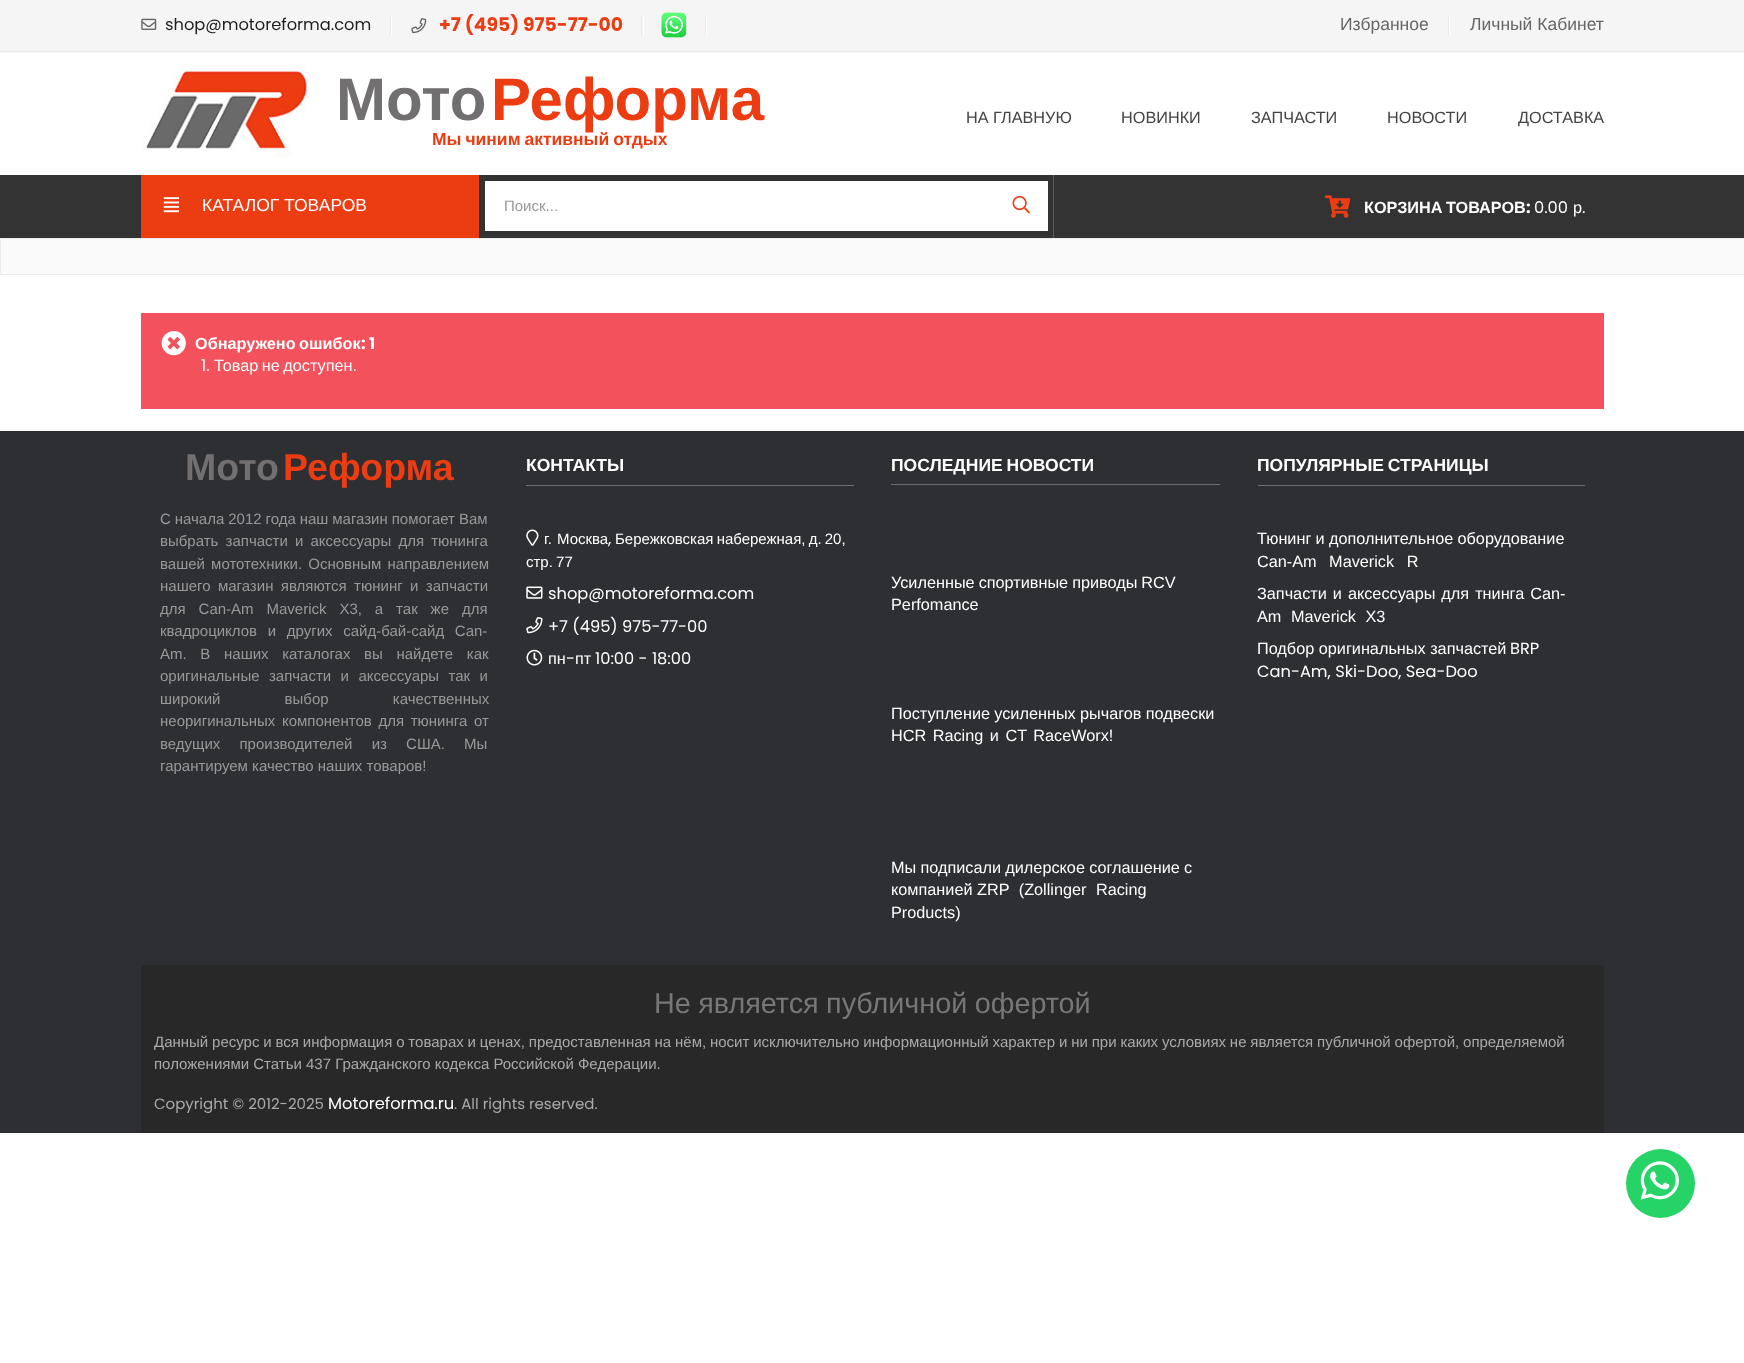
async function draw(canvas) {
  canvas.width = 1744;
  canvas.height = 1363;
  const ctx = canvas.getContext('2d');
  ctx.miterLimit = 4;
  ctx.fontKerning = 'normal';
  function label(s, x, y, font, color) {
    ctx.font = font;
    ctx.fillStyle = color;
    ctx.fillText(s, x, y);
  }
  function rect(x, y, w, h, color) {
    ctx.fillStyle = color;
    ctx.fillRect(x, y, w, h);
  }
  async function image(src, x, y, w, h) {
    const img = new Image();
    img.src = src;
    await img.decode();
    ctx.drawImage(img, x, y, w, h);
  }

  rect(0, 0, 1744, 1363, '#fff');
  rect(0, 0, 1744, 53, '#f6f5f5');
  rect(0, 51, 1744, 1, '#ebebeb');
  await image('assets/img1.png', 141, 18, 16, 12);
  label('shop@motoreforma.com', 165, 30, '16.25px Poppins', '#1e1e21');
  rect(391, 15, 1, 20, '#fff');
  rect(390, 15, 1, 20, '#eaeaea');
  await image('assets/img2.png', 411, 18, 16, 16);
  label('+7 (495) 975-77-00', 439, 31, 'bold 18.75px Poppins', '#ec3c12');
  rect(643, 15, 1, 20, '#fff');
  rect(641, 15, 1, 20, '#eaeaea');
  await image('assets/img3.png', 661, 12, 26, 26);
  rect(706, 15, 1, 20, '#fff');
  rect(705, 15, 1, 20, '#eaeaea');
  label('Избранное', 1340, 30, '17.5px Liberation Sans', '#666');
  rect(1449, 15, 1, 20, '#fff');
  rect(1448, 15, 1, 20, '#eaeaea');
  label('Личный Кабинет', 1470, 30, '17.5px Liberation Sans', '#666');
  await image('assets/img4.png', 142, 65, 165, 93);
  label('Мото', 336, 120, 'bold 60px Liberation Sans', '#716f6f');
  label('Реформа', 491, 120, 'bold 60px Liberation Sans', '#ec3c12');
  ctx.wordSpacing = '-1px';
  label('Мы чиним активный отдых', 432, 145, 'bold 17.5px Liberation Sans', '#ec3c12');
  ctx.wordSpacing = '0px';
  label('НА ГЛАВНУЮ', 966, 123, '16.25px Liberation Sans', '#444');
  label('НОВИНКИ', 1121, 123, '16.25px Liberation Sans', '#444');
  label('ЗАПЧАСТИ', 1251, 123, '16.25px Liberation Sans', '#444');
  label('НОВОСТИ', 1387, 123, '16.25px Liberation Sans', '#444');
  label('ДОСТАВКА', 1518, 123, '16.25px Liberation Sans', '#444');
  rect(0, 175, 1744, 63, '#333');
  rect(141, 175, 338, 63, '#ec3c12');
  await image('assets/img5.png', 163, 197, 17, 16);
  label('КАТАЛОГ ТОВАРОВ', 202, 211, '17.5px Liberation Sans', '#fff');
  rect(485, 181, 563, 50, '#fff');
  label('Поиск...', 504, 211, '15px Liberation Sans', '#999');
  await image('assets/img6.png', 1012, 195, 18, 19);
  rect(1053, 175, 1, 63, '#5c5c5c');
  await image('assets/img7.png', 1325, 195, 26, 23);
  ctx.wordSpacing = '-1px';
  label('КОРЗИНА ТОВАРОВ', 1364, 213, 'bold 16.25px Liberation Sans', '#fff');
  ctx.wordSpacing = '0px';
  label(':', 1526, 213, 'bold 16.25px Poppins', '#fff');
  label('0.00', 1534, 213, '16.25px Poppins', '#fff');
  label('р', 1573, 213, '16.25px Liberation Sans', '#fff');
  label('.', 1582, 213, '16.25px Poppins', '#fff');
  ctx.fillStyle = '#fafafa';
  ctx.beginPath();
  ctx.rect(0.5, 238.5, 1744, 36);
  ctx.fill();
  ctx.strokeStyle = '#ececec';
  ctx.stroke();
  rect(141, 313, 1463, 96, '#f3515c');
  await image('assets/img8.png', 161, 331, 25, 25);
  label('Обнаружено', 195, 349, 'bold 16.25px Liberation Sans', '#fff');
  label('ошибок', 299, 349, 'bold 16.25px Liberation Sans', '#fff');
  label(': 1', 361, 349, 'bold 16.25px Poppins', '#fff');
  label('1.', 201, 371, '16.25px Poppins', '#fff');
  ctx.wordSpacing = '-1px';
  label('Товар не доступен.', 214, 371, '16.25px Liberation Sans', '#fff');
  rect(0, 431, 1744, 702, '#2e2f33');
  ctx.wordSpacing = '0px';
  label('Мото', 185, 480, 'bold 37.5px Liberation Sans', '#716f6f');
  label('Реформа', 283, 480, 'bold 37.5px Liberation Sans', '#ec3c12');
  ctx.wordSpacing = '-0.25px';
  label('С начала 2012 года наш магазин помогает Вам', 160, 524, '15px Liberation Sans', '#999');
  ctx.wordSpacing = '3px';
  label('выбрать запчасти и аксессуары для тюнинга', 160, 546, '15px Liberation Sans', '#999');
  ctx.wordSpacing = '2px';
  label('вашей мототехники. Основным направлением', 160, 569, '15px Liberation Sans', '#999');
  ctx.wordSpacing = '3.25px';
  label('нашего магазин являются тюнинг и запчасти', 160, 591, '15px Liberation Sans', '#999');
  ctx.wordSpacing = '8.75px';
  label('для Can-Am Maverick X3, а так же для', 160, 614, '15px Liberation Sans', '#999');
  ctx.wordSpacing = '6.5px';
  label('квадроциклов и других сайд-бай-сайд Can-', 160, 636, '15px Liberation Sans', '#999');
  ctx.wordSpacing = '9.5px';
  label('Am. В наших каталогах вы найдете как', 160, 659, '15px Liberation Sans', '#999');
  ctx.wordSpacing = '5.25px';
  label('оригинальные запчасти и аксессуары так и', 160, 681, '15px Liberation Sans', '#999');
  ctx.wordSpacing = '60px';
  label('широкий выбор качественных', 160, 704, '15px Liberation Sans', '#999');
  ctx.wordSpacing = '2.5px';
  label('неоригинальных компонентов для тюнинга от', 160, 726, '15px Liberation Sans', '#999');
  ctx.wordSpacing = '15px';
  label('ведущих производителей из США. Мы', 160, 749, '15px Liberation Sans', '#999');
  ctx.wordSpacing = '0px';
  label('гарантируем качество наших товаров!', 160, 771, '15px Liberation Sans', '#999');
  rect(526, 485, 328, 1, '#6f6f6f');
  label('КОНТАКТЫ', 526, 471, 'bold 17.5px Liberation Sans', '#fff');
  await image('assets/img9.png', 526, 529, 13, 17);
  ctx.wordSpacing = '1px';
  label('г. Москва', 544, 544, '15px Liberation Sans', '#fff');
  ctx.wordSpacing = '0px';
  label(',', 608, 544, '16.25px Poppins', '#fff');
  ctx.wordSpacing = '-1px';
  label('Бережковская набережная, д. 20,', 615, 544, '15px Liberation Sans', '#fff');
  label('стр. 77', 526, 567, '15px Liberation Sans', '#fff');
  await image('assets/img10.png', 526, 586, 17, 13);
  ctx.wordSpacing = '0px';
  label('shop@motoreforma.com', 548, 599, '16.25px Poppins', '#fff');
  await image('assets/img11.png', 526, 617, 17, 17);
  label('+7 (495) 975-77-00', 548, 632, '16.25px Poppins', '#fff');
  await image('assets/img12.png', 526, 649, 17, 17);
  label('пн', 548, 664, '16.25px Liberation Sans', '#fff');
  label('-', 566, 664, '16.25px Poppins', '#fff');
  label('пт', 575, 664, '16.25px Liberation Sans', '#fff');
  label('10:00 - 18:00', 595, 664, '16.25px Poppins', '#fff');
  rect(891, 484, 329, 1, '#6f6f6f');
  ctx.wordSpacing = '-1px';
  label('ПОСЛЕДНИЕ НОВОСТИ', 891, 471, 'bold 17.5px Liberation Sans', '#fff');
  ctx.wordSpacing = '-0.5px';
  label('Усиленные спортивные приводы RCV', 891, 588, '16.25px Liberation Sans', '#fff');
  ctx.wordSpacing = '0px';
  label('Perfomance', 891, 610, '16.25px Liberation Sans', '#fff');
  ctx.wordSpacing = '-0.25px';
  label('Поступление усиленных рычагов подвески', 891, 719, '16.25px Liberation Sans', '#fff');
  ctx.wordSpacing = '2px';
  label('HCR Racing и CT RaceWorx!', 891, 741, '16.25px Liberation Sans', '#fff');
  ctx.wordSpacing = '-0.25px';
  label('Мы подписали дилерское соглашение с', 891, 873, '16.25px Liberation Sans', '#fff');
  ctx.wordSpacing = '0px';
  label('компанией', 891, 895, '16.25px Liberation Sans', '#fff');
  ctx.wordSpacing = '5px';
  label('ZRP (Zollinger Racing', 977, 895, '16.25px Liberation Sans', '#fff');
  ctx.wordSpacing = '0px';
  label('Products)', 891, 918, '16.25px Liberation Sans', '#fff');
  rect(1258, 485, 327, 1, '#6f6f6f');
  ctx.wordSpacing = '-1px';
  label('ПОПУЛЯРНЫЕ СТРАНИЦЫ', 1257, 471, 'bold 17.5px Liberation Sans', '#fff');
  ctx.wordSpacing = '-0.25px';
  label('Тюнинг и дополнительное оборудование', 1257, 544, '16.25px Liberation Sans', '#fff');
  ctx.wordSpacing = '8px';
  label('Can-Am Maverick R', 1257, 567, '16.25px Liberation Sans', '#fff');
  ctx.wordSpacing = '1.5px';
  label('Запчасти и аксессуары для тнинга Can-', 1257, 599, '16.25px Liberation Sans', '#fff');
  ctx.wordSpacing = '5px';
  label('Am Maverick X3', 1257, 622, '16.25px Liberation Sans', '#fff');
  ctx.wordSpacing = '0px';
  label('Подбор оригинальных запчастей', 1257, 654, '16.25px Liberation Sans', '#fff');
  label('BRP', 1510, 654, '16.25px Poppins', '#fff');
  label('Can-Am, Ski-Doo, Sea-Doo', 1257, 677, '16.25px Poppins', '#fff');
  rect(141, 965, 1463, 168, '#282828');
  ctx.wordSpacing = '-0.5px';
  label('Не является публичной офертой', 654, 1013, '28.75px Liberation Sans', '#777');
  ctx.wordSpacing = '-0.3px';
  label('Данный ресурс и вся информация о товарах и ценах, предоставленная на нём, носит исключительно информационный характер и ни при каких условиях не является публичной офертой, определяемой', 154, 1047, '15px Liberation Sans', '#aaa');
  ctx.wordSpacing = '0px';
  label('положениями Статьи 437 Гражданского кодекса Российской Федерации.', 154, 1069, '15px Liberation Sans', '#aaa');
  label('Copyright © 2012-2025', 154, 1109, '15px Poppins', '#aaa');
  label('Motoreforma.ru', 328, 1109, '16.25px Poppins', '#fff');
  label('. All rights reserved.', 454, 1109, '15px Poppins', '#aaa');
  ctx.fillStyle = '#25d366';
  ctx.beginPath();
  ctx.arc(1660.5, 1183.5, 34.5, 0, 2 * Math.PI);
  ctx.fill();
  await image('assets/img13.png', 1640, 1161, 39, 39);
}

draw(document.querySelector('canvas'));
